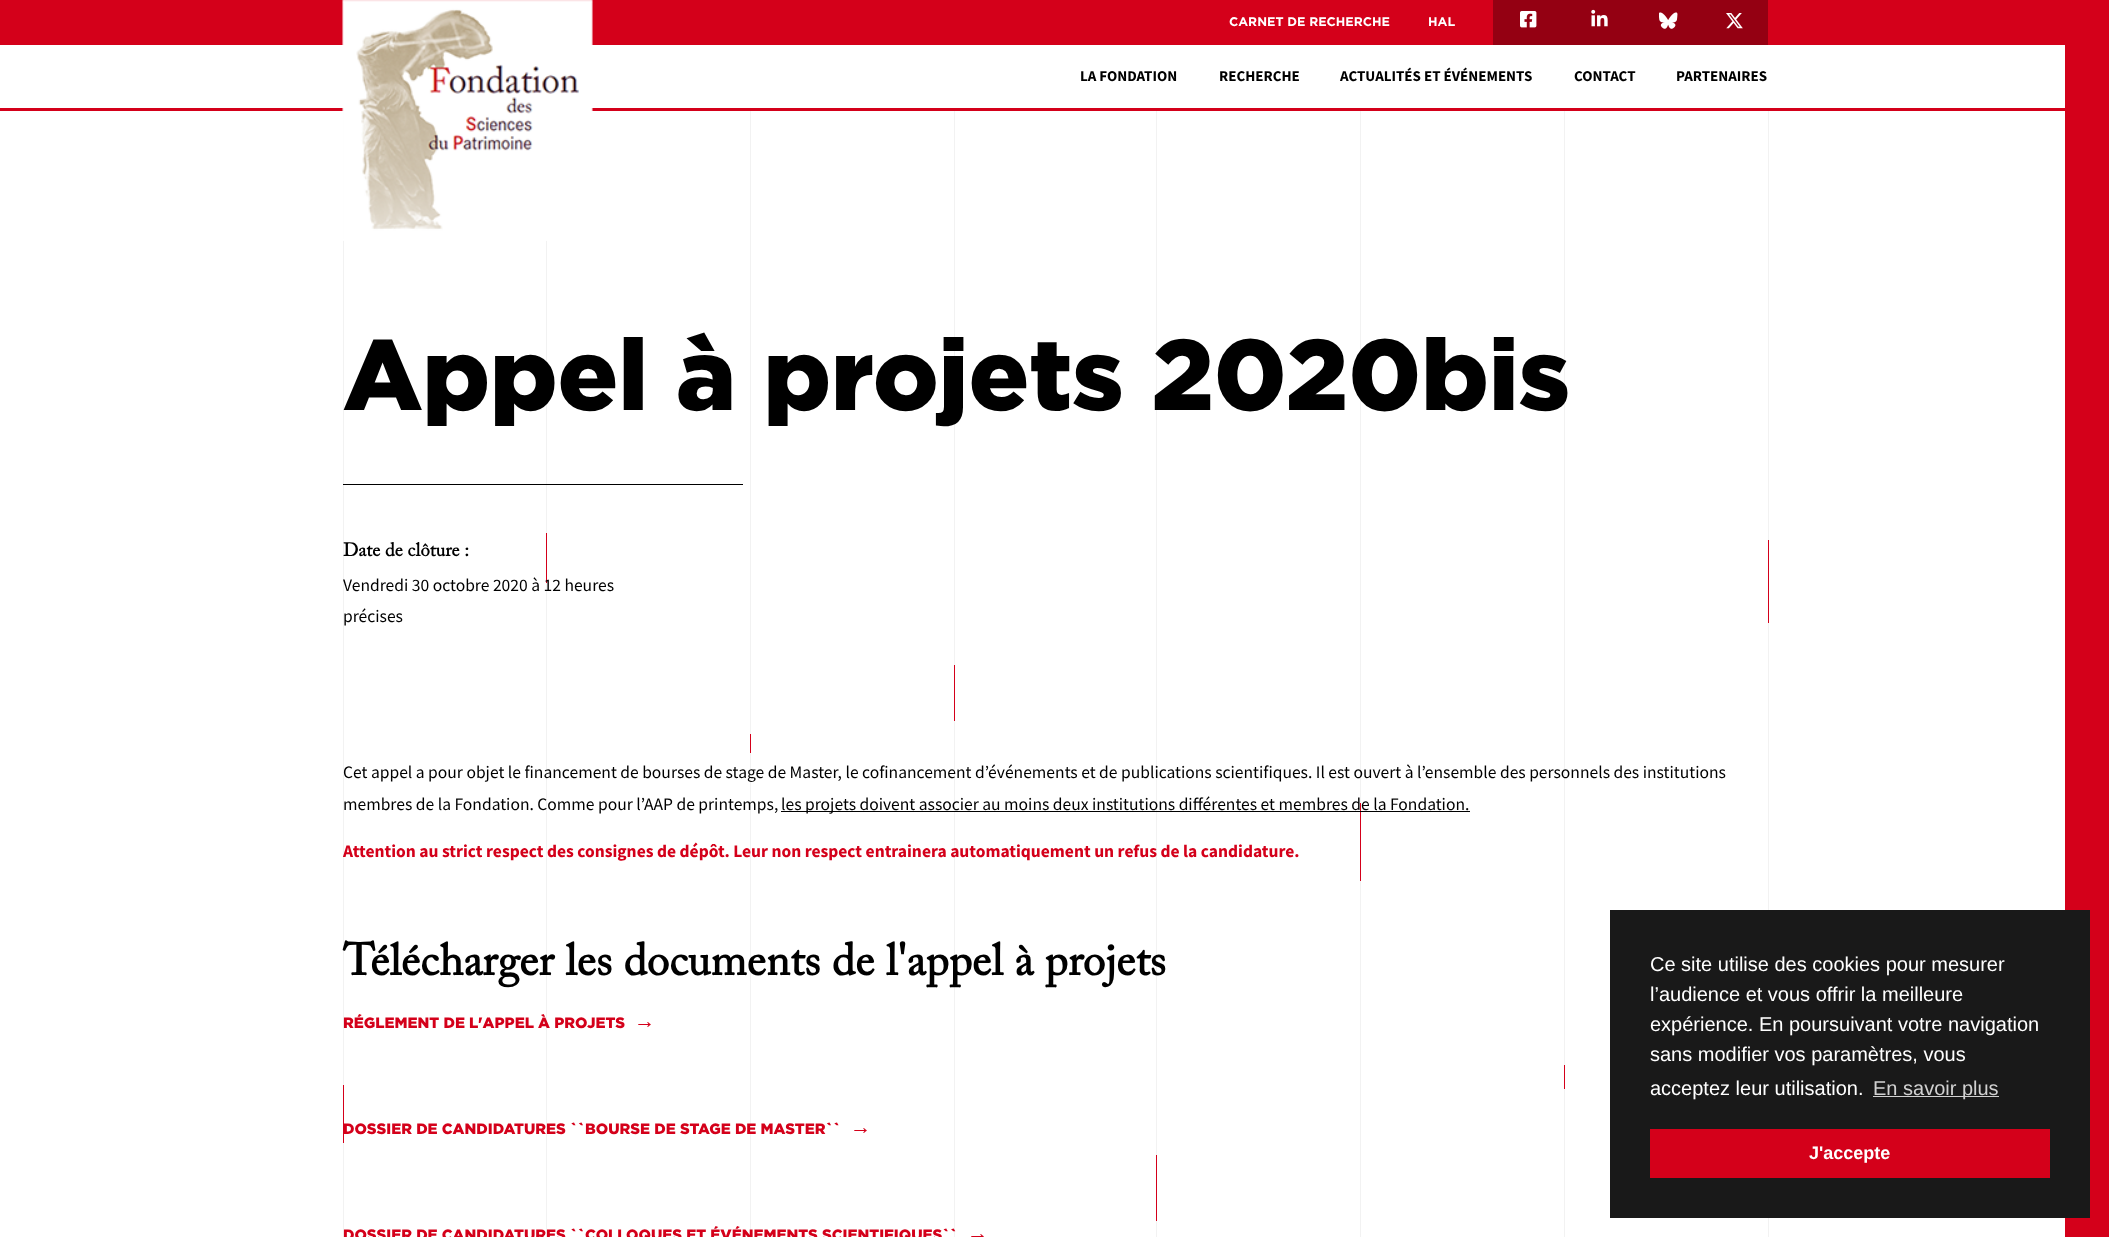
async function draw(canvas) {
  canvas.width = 2109;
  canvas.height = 1237;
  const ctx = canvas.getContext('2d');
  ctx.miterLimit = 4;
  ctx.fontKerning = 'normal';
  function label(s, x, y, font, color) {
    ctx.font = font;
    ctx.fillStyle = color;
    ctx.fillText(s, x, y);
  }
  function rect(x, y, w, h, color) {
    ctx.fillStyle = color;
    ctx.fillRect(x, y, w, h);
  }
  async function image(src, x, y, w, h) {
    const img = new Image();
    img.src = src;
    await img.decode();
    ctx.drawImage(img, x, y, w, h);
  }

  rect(0, 0, 2109, 1237, '#fff');
  rect(0, 0, 2065, 45, '#d4001a');
  rect(0, 108, 2065, 3, '#d4001a');
  rect(343, 111, 1, 1126, '#f2f2f2');
  rect(546, 239, 1, 998, '#f2f2f2');
  await image('assets/img1.png', 342, 0, 251, 241);
  label('CARNET DE RECHERCHE', 1229, 26, 'bold 12.5px Gotham', '#fff');
  label('HAL', 1428, 26, 'bold 12.5px Gotham', '#fff');
  rect(1493, 0, 275, 45, '#940012');
  await image('assets/img2.png', 1520, 11, 17, 17);
  await image('assets/img3.png', 1591, 9, 17, 18);
  await image('assets/img4.png', 1659, 12, 19, 17);
  await image('assets/img5.png', 1726, 13, 17, 16);
  label('LA FONDATION', 1080, 81, 'bold 15px Source Sans Pro', '#000');
  label('RECHERCHE', 1219, 81, 'bold 15px Source Sans Pro', '#000');
  label('ACTUALITÉS ET ÉVÉNEMENTS', 1340, 81, 'bold 15px Source Sans Pro', '#000');
  label('CONTACT', 1574, 81, 'bold 15px Source Sans Pro', '#000');
  label('PARTENAIRES', 1676, 81, 'bold 15px Source Sans Pro', '#000');
  rect(750, 111, 1, 1126, '#f2f2f2');
  rect(954, 111, 1, 1126, '#f2f2f2');
  rect(1156, 111, 1, 1126, '#f2f2f2');
  rect(1360, 111, 1, 1126, '#f2f2f2');
  rect(1564, 111, 1, 1126, '#f2f2f2');
  label('Appel à projets 2020bis', 343, 410, '900 100px Gotham', '#000');
  rect(343, 484, 400, 1, '#000');
  label('Date de clôture :', 343, 556, 'bold 18.75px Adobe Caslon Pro', '#000');
  rect(546, 533, 1, 50, '#d4001a');
  label('Vendredi 30 octobre 2020 à 12 heures', 343, 591, '17.5px Source Sans Pro', '#000');
  label('précises', 343, 622, '17.5px Source Sans Pro', '#000');
  label('Cet appel a pour objet le financement de bourses de stage de Master, le cofinancement d’événements et de publications scientifiques. Il est ouvert à l’ensemble des personnels des institutions', 343, 778, '17.5px Source Sans Pro', '#000');
  label('membres de la Fondation. Comme pour l’AAP de printemps,', 343, 810, '17.5px Source Sans Pro', '#000');
  rect(1360, 803, 1, 78, '#d4001a');
  rect(781, 811, 689, 1, '#000');
  label('les projets doivent associer au moins deux institutions différentes et membres de la Fondation.', 781, 810, '17.5px Source Sans Pro', '#000');
  label('Attention au strict respect des consignes de dépôt. Leur non respect entrainera automatiquement un refus de la candidature.', 343, 857, 'bold 17.5px Source Sans Pro', '#d4001a');
  label('Télécharger les documents de l\'appel à projets', 343, 975, 'bold 45px Adobe Caslon Pro', '#000');
  label('RÉGLEMENT DE L\'APPEL À PROJETS', 343, 1028, '900 15px Gotham', '#d4001a');
  label('→', 634, 1028, 'bold 21px Liberation Sans', '#d4001a');
  rect(343, 1085, 1, 58, '#d4001a');
  label('DOSSIER DE CANDIDATURES ``BOURSE DE STAGE DE MASTER``', 343, 1134, '900 15px Gotham', '#d4001a');
  label('→', 850, 1134, 'bold 21px Liberation Sans', '#d4001a');
  label('DOSSIER DE CANDIDATURES ``COLLOQUES ET ÉVÉNEMENTS SCIENTIFIQUES``', 343, 1240, '900 15px Gotham', '#d4001a');
  label('→', 967, 1240, 'bold 21px Liberation Sans', '#d4001a');
  rect(2065, 0, 44, 1237, '#d4001a');
  rect(750, 734, 1, 19, '#d4001a');
  rect(954, 665, 1, 56, '#d4001a');
  rect(1156, 1155, 1, 66, '#d4001a');
  rect(1564, 1065, 1, 24, '#d4001a');
  rect(1768, 111, 1, 1126, '#f2f2f2');
  rect(1768, 540, 1, 83, '#d4001a');
  rect(1610, 910, 480, 308, '#191919');
  label('Ce site utilise des cookies pour mesurer', 1650, 971, '20px Liberation Sans', '#fff');
  label('l’audience et vous offrir la meilleure', 1650, 1001, '20px Liberation Sans', '#fff');
  label('expérience. En poursuivant votre navigation', 1650, 1031, '20px Liberation Sans', '#fff');
  label('sans modifier vos paramètres, vous', 1650, 1061, '20px Liberation Sans', '#fff');
  label('acceptez leur utilisation.', 1650, 1095, '20px Liberation Sans', '#fff');
  rect(1873, 1096, 126, 1, '#d1d1d1');
  label('En savoir plus', 1873, 1095, '20px Liberation Sans', '#d1d1d1');
  rect(1650, 1129, 400, 49, '#d4001a');
  label('J\'accepte', 1809, 1159, 'bold 18px Liberation Sans', '#fff');
}

draw(document.querySelector('canvas'));
